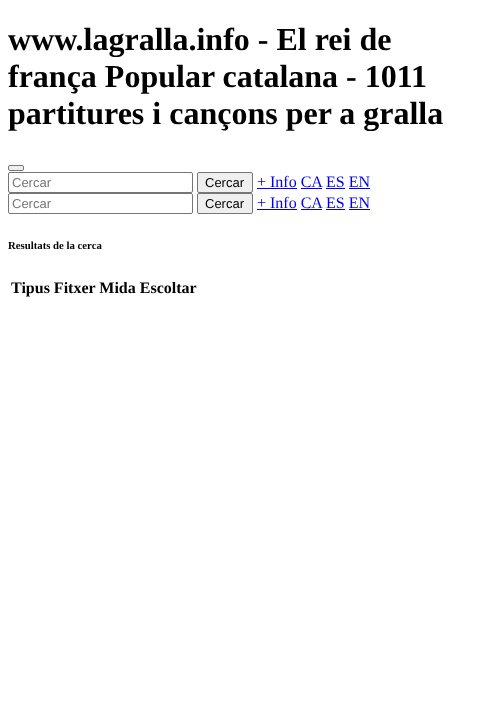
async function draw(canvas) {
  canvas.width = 494;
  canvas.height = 725;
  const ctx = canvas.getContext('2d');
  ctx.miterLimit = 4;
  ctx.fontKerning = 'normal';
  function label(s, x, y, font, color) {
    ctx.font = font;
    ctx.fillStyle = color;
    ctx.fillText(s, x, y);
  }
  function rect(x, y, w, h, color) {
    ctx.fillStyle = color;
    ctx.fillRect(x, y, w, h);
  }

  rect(0, 0, 494, 725, '#fff');
  label('www.lagralla.info - El rei de', 8, 50, 'bold 32px Liberation Serif', '#000');
  label('frança Popular catalana - 1011', 8, 87, 'bold 32px Liberation Serif', '#000');
  label('partitures i cançons per a gralla', 8, 124, 'bold 32px Liberation Serif', '#000');
  ctx.fillStyle = '#efefef';
  ctx.beginPath();
  ctx.roundRect(8.5, 165.5, 15, 5, 1.5);
  ctx.fill();
  ctx.strokeStyle = '#767676';
  ctx.stroke();
  ctx.beginPath();
  ctx.roundRect(8.5, 172.5, 184, 20, 1.5);
  ctx.stroke();
  label('Cercar', 12, 187, '13px Liberation Sans', '#757575');
  ctx.fillStyle = '#efefef';
  ctx.beginPath();
  ctx.roundRect(197.5, 172.5, 55, 20, 1.5);
  ctx.fill();
  ctx.stroke();
  label('Cercar', 205, 187, '13px Liberation Sans', '#000');
  label('+ Info CA', 257, 187, '16px Liberation Serif', '#00e');
  rect(257, 188, 40, 1, '#00e');
  label('ES EN', 326, 187, '16px Liberation Serif', '#00e');
  rect(326, 188, 19, 1, '#00e');
  rect(301, 188, 21, 1, '#00e');
  rect(349, 188, 21, 1, '#00e');
  ctx.beginPath();
  ctx.roundRect(8.5, 193.5, 184, 20, 1.5);
  ctx.stroke();
  label('Cercar', 12, 208, '13px Liberation Sans', '#757575');
  ctx.fillStyle = '#efefef';
  ctx.beginPath();
  ctx.roundRect(197.5, 193.5, 55, 20, 1.5);
  ctx.fill();
  ctx.stroke();
  label('Cercar', 205, 208, '13px Liberation Sans', '#000');
  label('+ Info CA', 257, 208, '16px Liberation Serif', '#00e');
  rect(257, 209, 40, 1, '#00e');
  label('ES EN', 326, 208, '16px Liberation Serif', '#00e');
  rect(326, 209, 19, 1, '#00e');
  rect(301, 209, 21, 1, '#00e');
  rect(349, 209, 21, 1, '#00e');
  label('Resultats de la cerca', 8, 249, 'bold 10.75px Liberation Serif', '#000');
  label('Tipus Fitxer Mida Escoltar', 11, 293, 'bold 16px Liberation Serif', '#000');
}

draw(document.querySelector('canvas'));
